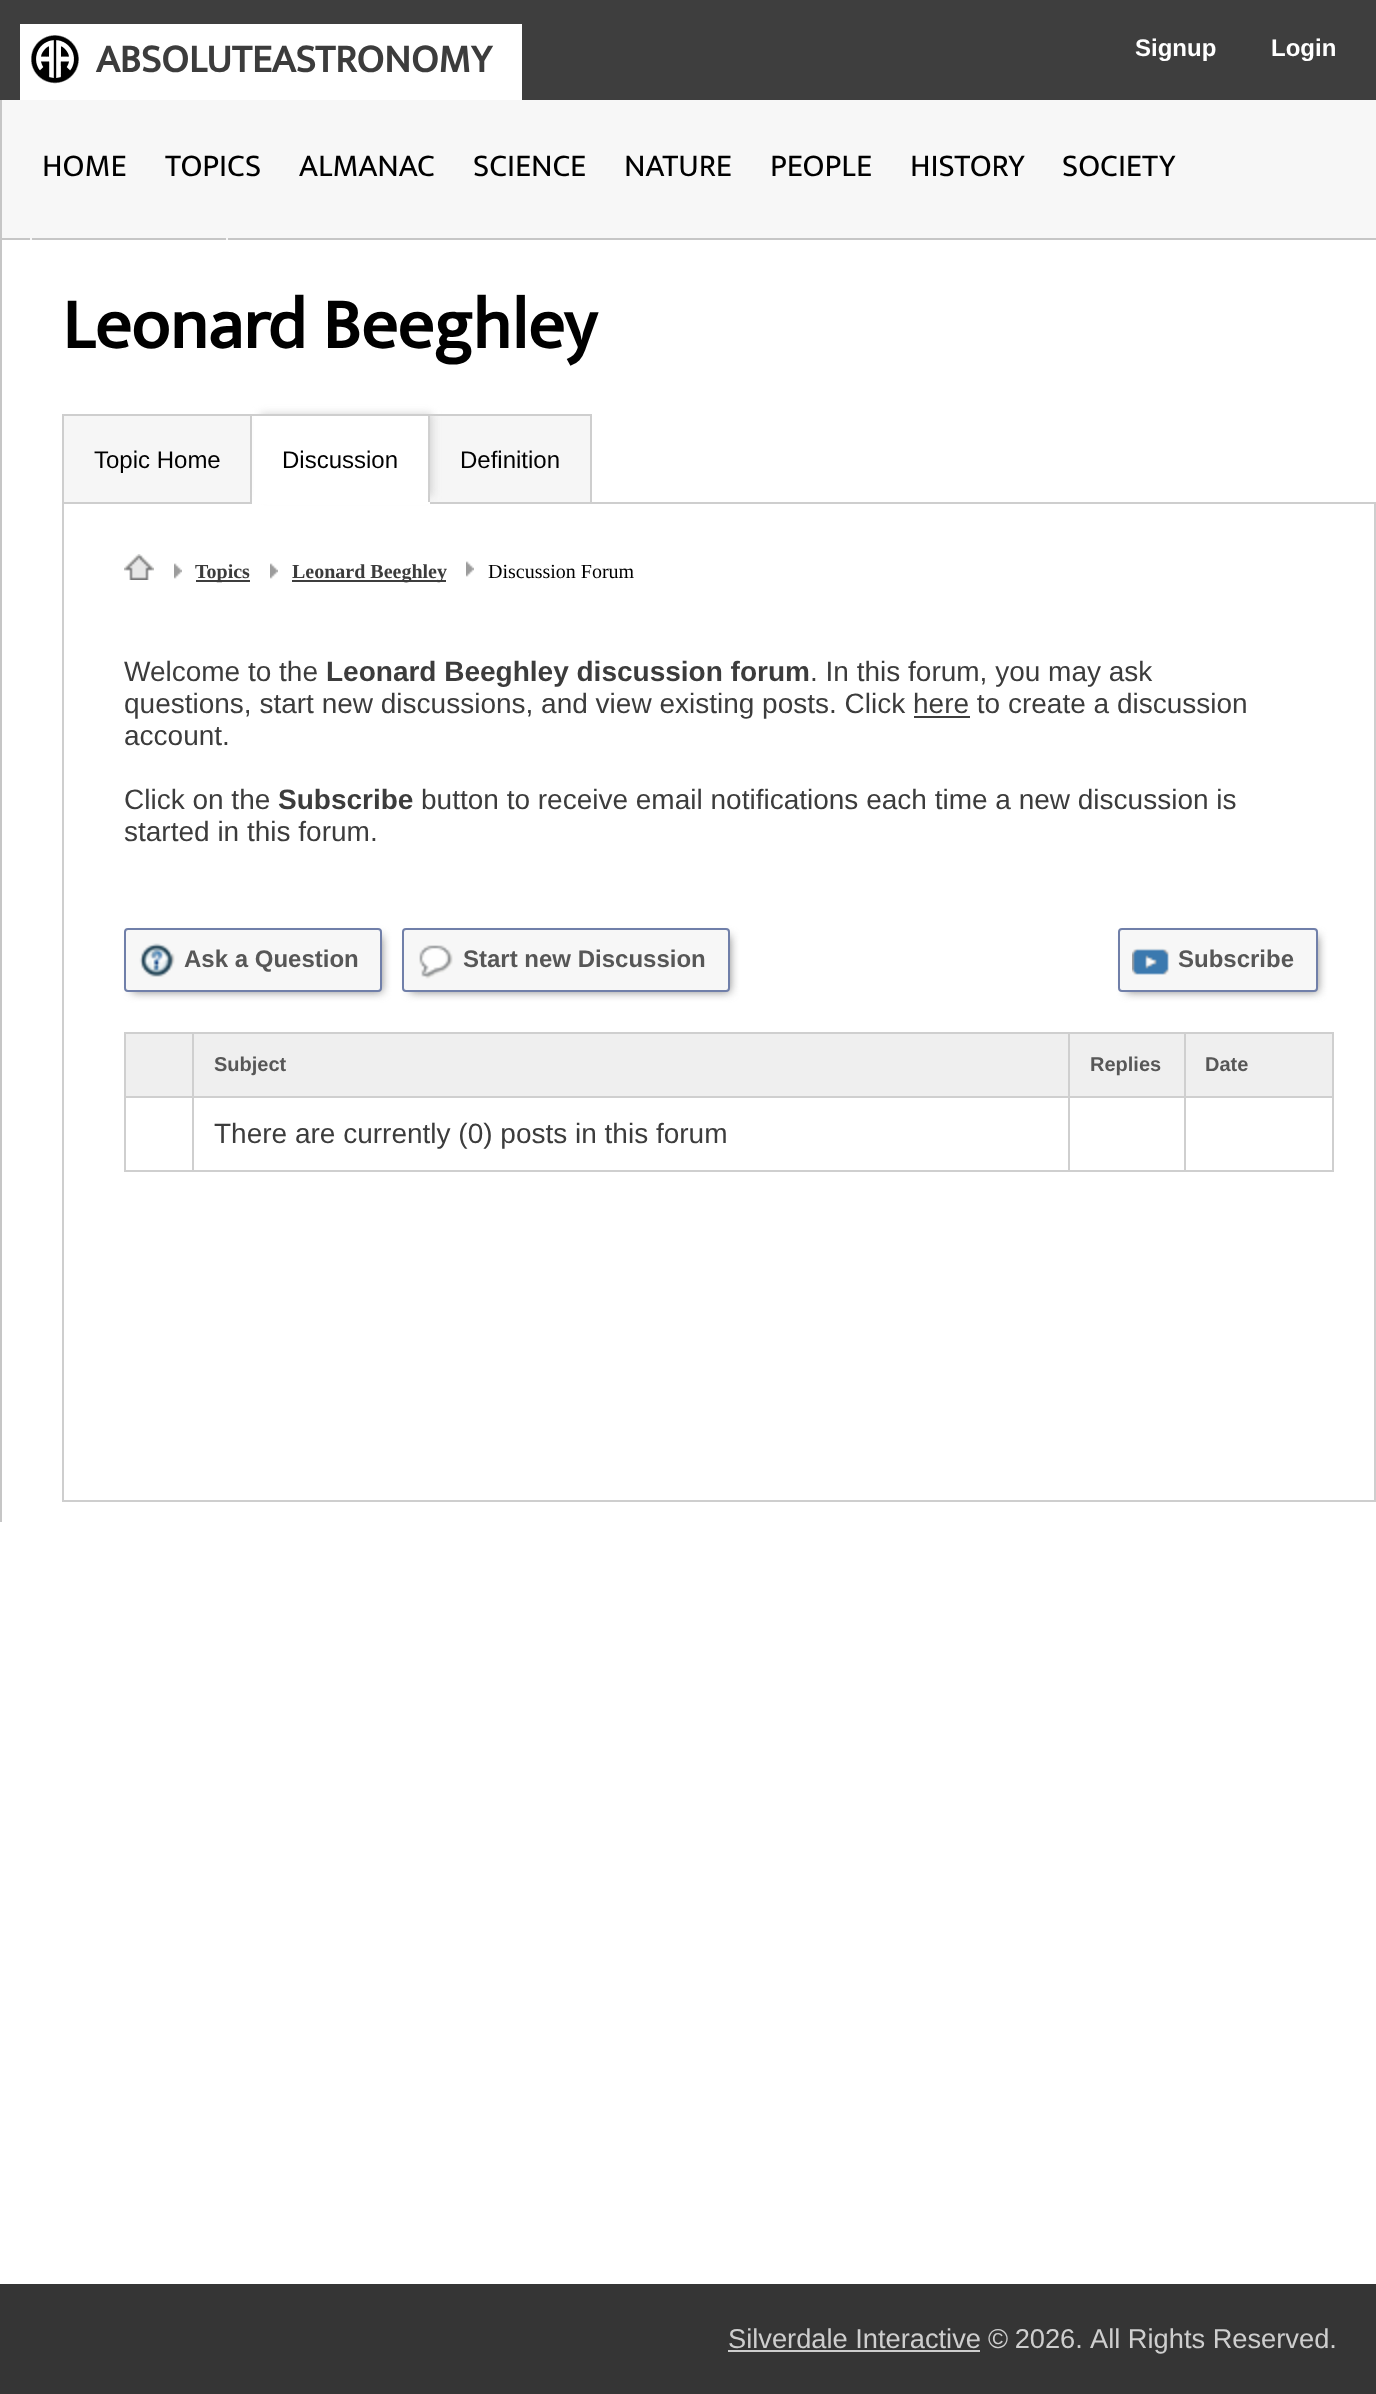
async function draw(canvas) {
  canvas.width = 1376;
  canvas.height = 2394;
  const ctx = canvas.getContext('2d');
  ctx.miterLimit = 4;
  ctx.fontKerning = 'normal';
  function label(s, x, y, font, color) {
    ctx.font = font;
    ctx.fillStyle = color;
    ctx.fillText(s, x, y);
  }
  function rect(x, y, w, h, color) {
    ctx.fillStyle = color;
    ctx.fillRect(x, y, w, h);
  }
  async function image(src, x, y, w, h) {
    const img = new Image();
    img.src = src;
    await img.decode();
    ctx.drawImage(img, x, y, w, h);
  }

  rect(0, 0, 1376, 2394, '#fff');
  rect(0, 0, 1376, 100, '#3e3e3e');
  rect(20, 24, 502, 76, '#fff');
  await image('assets/img1.png', 31, 35, 48, 49);
  label('ABSOLUTEASTRONOMY', 96, 72, 'bold 40px Mukta', '#3c3c3c');
  label('Signup', 1135, 56, 'bold 24px Liberation Sans', '#fff');
  label('Login', 1271, 56, 'bold 24px Liberation Sans', '#fff');
  rect(2, 100, 1374, 138, '#f7f7f7');
  rect(0, 238, 1376, 2, '#c6c6c6');
  label('HOME', 42, 176, '32px Mukta', '#000');
  label('TOPICS', 165, 176, '32px Mukta', '#000');
  label('ALMANAC', 299, 176, '32px Mukta', '#000');
  label('SCIENCE', 473, 176, '32px Mukta', '#000');
  label('NATURE', 624, 176, '32px Mukta', '#000');
  label('PEOPLE', 770, 176, '32px Mukta', '#000');
  label('HISTORY', 910, 176, '32px Mukta', '#000');
  label('SOCIETY', 1062, 176, '32px Mukta', '#000');
  ctx.save();
  ctx.beginPath();
  ctx.rect(2, 100, 1374, 140);
  ctx.clip();
  ctx.strokeStyle = '#f7f7f7';
  ctx.lineWidth = 2;
  ctx.strokeRect(31, 211, 196, 82);
  ctx.restore();
  rect(0, 100, 2, 1422, '#c6c6c6');
  label('Leonard Beeghley', 62, 348, 'bold 72px Mukta', '#000');
  ctx.strokeStyle = '#cecece';
  ctx.lineWidth = 2;
  ctx.strokeRect(63, 503, 1312, 998);
  ctx.fillStyle = '#f6f6f6';
  ctx.beginPath();
  ctx.rect(63, 415, 188, 88);
  ctx.fill();
  ctx.stroke();
  label('Topic Home', 94, 468, '24px Liberation Sans', '#000');
  ctx.fillStyle = '#f6f6f6';
  ctx.beginPath();
  ctx.rect(429, 415, 162, 88);
  ctx.fill();
  ctx.stroke();
  ctx.fillStyle = '#d1d1d1';
  ctx.filter = 'blur(4px)';
  ctx.beginPath();
  ctx.rect(260, 414, 172, 82);
  ctx.fill();
  ctx.filter = 'none';
  rect(254, 416, 174, 86, '#fff');
  rect(250, 414, 180, 2, '#cecece');
  rect(250, 502, 180, 2, '#fff');
  rect(250, 502, 2, 2, '#cecece');
  label('Discussion', 282, 468, '24px Liberation Sans', '#000');
  label('Definition', 460, 468, '24px Liberation Sans', '#000');
  await image('assets/img2.png', 124, 554, 30, 26);
  await image('assets/img3.png', 174, 563, 8, 16);
  rect(196, 580, 54, 2, '#3d3d3d');
  label('Topics', 195, 578, 'bold 20px Liberation Serif', '#3c3c3c');
  await image('assets/img3.png', 270, 563, 8, 16);
  rect(292, 580, 154, 2, '#3d3d3d');
  label('Leonard Beeghley', 292, 578, 'bold 20px Liberation Serif', '#3c3c3c');
  await image('assets/img3.png', 466, 561, 8, 16);
  label('Discussion Forum', 488, 578, '20px Liberation Serif', '#000');
  label('Welcome to the', 124, 681, '28px Liberation Sans', '#3c3c3c');
  label('Leonard Beeghley discussion forum', 326, 681, 'bold 28px Liberation Sans', '#3c3c3c');
  label('. In this forum, you may ask', 810, 681, '28px Liberation Sans', '#3c3c3c');
  label('questions, start new discussions, and view existing posts. Click here to create a discussion', 124, 713, '28px Liberation Sans', '#3c3c3c');
  rect(914, 716, 56, 2, '#3d3d3d');
  label('account.', 124, 745, '28px Liberation Sans', '#3c3c3c');
  label('Click on the', 124, 809, '28px Liberation Sans', '#3c3c3c');
  label('Subscribe', 278, 809, 'bold 28px Liberation Sans', '#3c3c3c');
  label('button to receive email notifications each time a new discussion is', 421, 809, '28px Liberation Sans', '#3c3c3c');
  label('started in this forum.', 124, 841, '28px Liberation Sans', '#3c3c3c');
  ctx.fillStyle = '#858585';
  ctx.filter = 'blur(5px)';
  ctx.beginPath();
  ctx.rect(132, 936, 250, 56);
  ctx.fill();
  ctx.filter = 'none';
  ctx.fillStyle = '#f7f7f7';
  ctx.beginPath();
  ctx.roundRect(125, 929, 256, 62, 3);
  ctx.fill();
  ctx.strokeStyle = '#707fa9';
  ctx.stroke();
  await image('assets/img4.png', 139, 943, 36, 34);
  label('Ask a Question', 184, 967, 'bold 24px Liberation Sans', '#575757');
  ctx.fillStyle = '#858585';
  ctx.filter = 'blur(5px)';
  ctx.beginPath();
  ctx.rect(410, 936, 320, 56);
  ctx.fill();
  ctx.filter = 'none';
  ctx.fillStyle = '#f7f7f7';
  ctx.beginPath();
  ctx.roundRect(403, 929, 326, 62, 3);
  ctx.fill();
  ctx.stroke();
  await image('assets/img5.png', 419, 945, 34, 34);
  label('Start new Discussion', 463, 967, 'bold 24px Liberation Sans', '#575757');
  ctx.fillStyle = '#858585';
  ctx.filter = 'blur(5px)';
  ctx.beginPath();
  ctx.rect(1126, 936, 192, 56);
  ctx.fill();
  ctx.filter = 'none';
  ctx.fillStyle = '#f7f7f7';
  ctx.beginPath();
  ctx.roundRect(1119, 929, 198, 62, 3);
  ctx.fill();
  ctx.stroke();
  await image('assets/img6.png', 1132, 948, 37, 27);
  label('Subscribe', 1178, 967, 'bold 24px Liberation Sans', '#575757');
  rect(124, 1032, 1210, 2, '#cfcfcf');
  rect(1332, 1032, 2, 140, '#cfcfcf');
  rect(124, 1170, 1210, 2, '#cfcfcf');
  rect(124, 1032, 2, 140, '#cfcfcf');
  rect(126, 1034, 1206, 62, '#efefef');
  rect(1184, 1096, 150, 2, '#cfcfcf');
  rect(1184, 1096, 2, 76, '#cfcfcf');
  rect(1068, 1096, 118, 2, '#cfcfcf');
  rect(1068, 1096, 2, 76, '#cfcfcf');
  rect(192, 1096, 878, 2, '#cfcfcf');
  rect(192, 1096, 2, 76, '#cfcfcf');
  rect(124, 1096, 70, 2, '#cfcfcf');
  rect(192, 1032, 2, 66, '#cfcfcf');
  label('Subject', 214, 1071, 'bold 20px Liberation Sans', '#575757');
  rect(1068, 1032, 2, 66, '#cfcfcf');
  label('Replies', 1090, 1071, 'bold 20px Liberation Sans', '#575757');
  rect(1184, 1032, 2, 66, '#cfcfcf');
  label('Date', 1205, 1071, 'bold 20px Liberation Sans', '#575757');
  label('There are currently (0) posts in this forum', 214, 1143, '28px Liberation Sans', '#3c3c3c');
  rect(0, 2284, 1376, 110, '#353535');
  label('Silverdale Interactive', 728, 2348, '27.25px Liberation Sans', '#cecece');
  rect(728, 2350, 252, 2, '#cecece');
  ctx.wordSpacing = '-1px';
  label('© 2026.', 988, 2348, '27.25px Liberation Sans', '#cecece');
  ctx.wordSpacing = '0px';
  label('All Rights Reserved.', 1090, 2348, '27.25px Liberation Sans', '#cecece');
}

draw(document.querySelector('canvas'));
